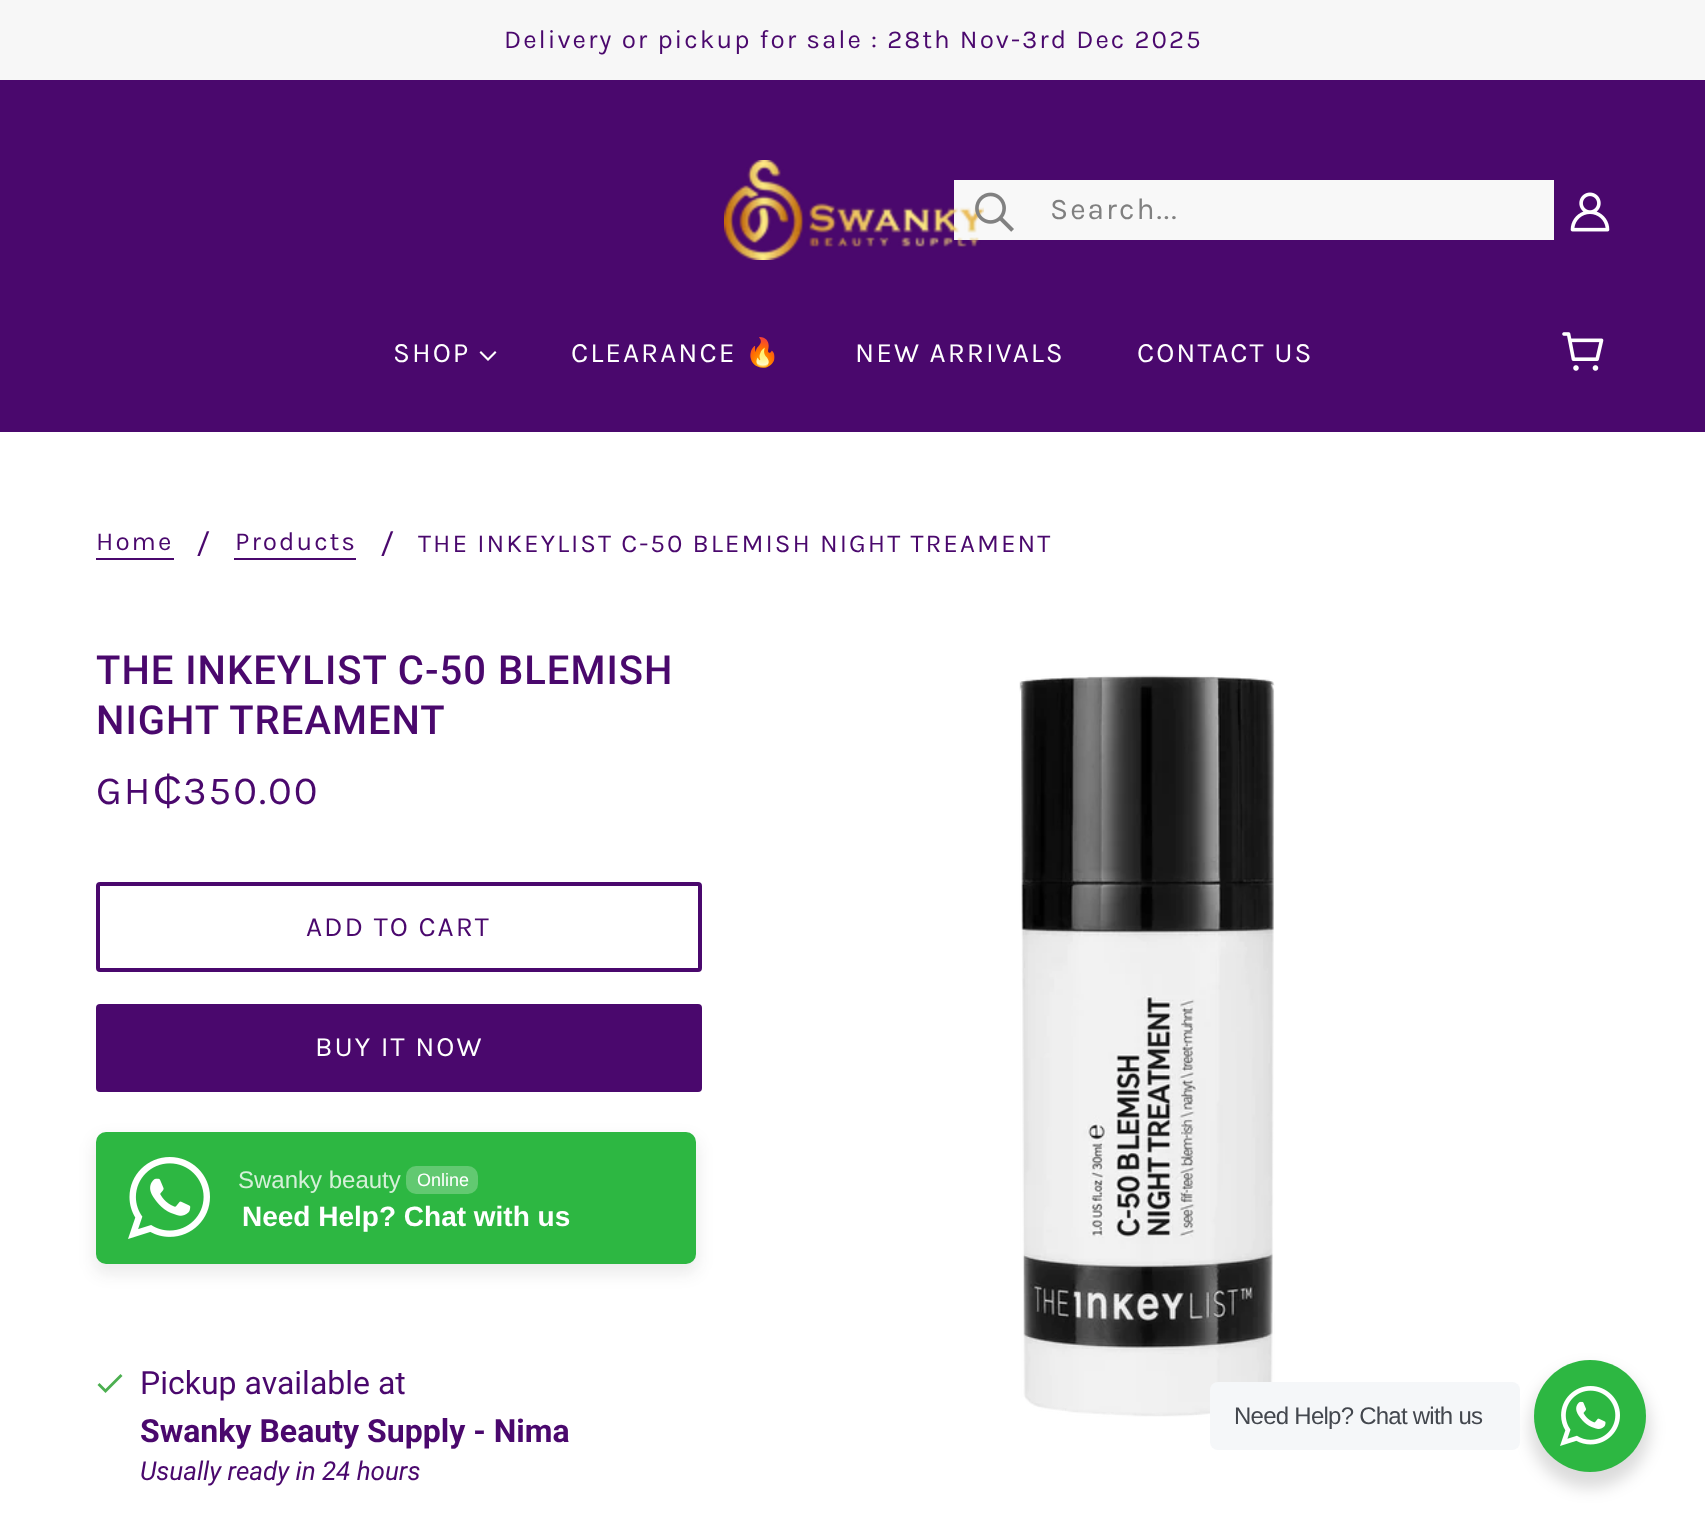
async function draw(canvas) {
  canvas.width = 1705;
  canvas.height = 1532;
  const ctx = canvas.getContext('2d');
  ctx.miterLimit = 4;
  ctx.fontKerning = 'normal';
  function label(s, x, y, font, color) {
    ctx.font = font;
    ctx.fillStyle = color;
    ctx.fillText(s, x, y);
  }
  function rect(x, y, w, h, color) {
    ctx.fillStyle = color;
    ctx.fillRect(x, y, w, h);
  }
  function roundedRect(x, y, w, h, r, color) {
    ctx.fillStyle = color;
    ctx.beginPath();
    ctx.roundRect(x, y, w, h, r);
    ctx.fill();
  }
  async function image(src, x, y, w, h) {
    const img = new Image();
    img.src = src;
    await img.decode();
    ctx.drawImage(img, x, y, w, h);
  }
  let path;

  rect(0, 0, 1705, 1532, '#fff');
  rect(0, 0, 1705, 80, '#f7f7f7');
  ctx.letterSpacing = '2px';
  label('Delivery or pickup for sale : 28th Nov-3rd Dec 2025', 504, 48, '26px Karla', '#4a086d');
  rect(0, 80, 1705, 352, '#4a086d');
  rect(954, 180, 600, 60, '#f8f8f8');
  await image('assets/img1.png', 724, 160, 260, 100);
  await image('assets/img2.png', 975, 192, 39, 40);
  label('Search...', 1050, 219, '30px Karla', '#808080');
  await image('assets/img3.png', 1570, 192, 40, 40);
  label('SHOP', 393, 362, '28px Karla', '#fff');
  path = new Path2D('M488 358L495 351L496.5 352.5L488 361L479.5 352.5L481 351Z');
  ctx.fill(path);
  label('CLEARANCE', 571, 362, '28px Karla', '#fff');
  label('🔥', 745, 362, '28px Noto Color Emoji', '#fff');
  label('NEW ARRIVALS', 855, 362, '28px Karla', '#fff');
  label('CONTACT US', 1137, 362, '28px Karla', '#fff');
  await image('assets/img4.png', 1562, 332, 42, 39);
  label('Home', 96, 550, '26px Karla', '#4a086d');
  rect(96, 558, 78, 2, '#4a086d');
  ctx.letterSpacing = '0px';
  label('/', 197, 554, '32px Roboto', '#4a086d');
  ctx.letterSpacing = '2px';
  label('Products', 235, 550, '26px Karla', '#4a086d');
  rect(234, 558, 122, 2, '#4a086d');
  ctx.letterSpacing = '0px';
  label('/', 381, 554, '32px Roboto', '#4a086d');
  ctx.letterSpacing = '2px';
  label('THE INKEYLIST C-50 BLEMISH NIGHT TREAMENT', 418, 552, '26px Karla', '#4a086d');
  ctx.letterSpacing = '1px';
  label('THE INKEYLIST C-50 BLEMISH', 96, 684, '500 40px Roboto', '#4a086d');
  label('NIGHT TREAMENT', 96, 734, '500 40px Roboto', '#4a086d');
  await image('assets/img5.png', 1019, 675, 256, 742);
  ctx.letterSpacing = '2px';
  label('GH', 96, 804, '40px Karla', '#4a086d');
  label('₵', 153, 804, '40px Liberation Sans', '#4a086d');
  label('350.00', 183, 804, '40px Karla', '#4a086d');
  ctx.beginPath();
  ctx.roundRect(98, 884, 602, 86, 2);
  ctx.strokeStyle = '#4a086d';
  ctx.lineWidth = 4;
  ctx.stroke();
  label('ADD TO CART', 306, 936, '28px Karla', '#4a086d');
  roundedRect(96, 1004, 606, 88, 4, '#4a086d');
  label('BUY IT NOW', 315, 1056, '28px Karla', '#fff');
  ctx.fillStyle = '#20202517';
  ctx.filter = 'blur(8px)';
  ctx.beginPath();
  ctx.roundRect(94, 1138, 604, 136, 12);
  ctx.fill();
  ctx.filter = 'none';
  roundedRect(96, 1132, 600, 132, 10, '#2db742');
  await image('assets/img6.png', 128, 1157, 82, 82);
  ctx.letterSpacing = '0px';
  label('Swanky beauty', 238, 1188, '24px Liberation Sans', '#d5f0d9');
  roundedRect(406, 1166, 72, 28, 10, '#62c971');
  label('Online', 417, 1186, '18px Liberation Sans', '#fff');
  label('Need Help? Chat with us', 242, 1226, 'bold 28px Liberation Sans', '#fff');
  ctx.fillStyle = '#4caf50';
  path = new Path2D('M105.5 1389L99.5 1383L97.5 1385L105.5 1393L122.5 1376L120.5 1374Z');
  ctx.fill(path);
  label('Pickup available at', 140, 1394, '32px Roboto', '#4a086d');
  label('Swanky Beauty Supply - Nima', 140, 1442, 'bold 32px Roboto', '#4a086d');
  label('Usually ready in 24 hours', 140, 1480, 'italic 26px Roboto', '#4a086d');
  ctx.fillStyle = '#00000024';
  ctx.filter = 'blur(8px)';
  ctx.beginPath();
  ctx.roundRect(1530, 1368, 120, 120, 60);
  ctx.fill();
  ctx.filter = 'none';
  roundedRect(1210, 1382, 310, 68, 8, '#f5f7f9');
  ctx.letterSpacing = '-0.75px';
  label('Need Help? Chat with us', 1234, 1424, '24px Liberation Sans', '#43474e');
  ctx.fillStyle = '#2db742';
  ctx.beginPath();
  ctx.arc(1590, 1416, 56, 0, 2 * Math.PI);
  ctx.fill();
  await image('assets/img7.png', 1560, 1386, 60, 60);
}

draw(document.querySelector('canvas'));
